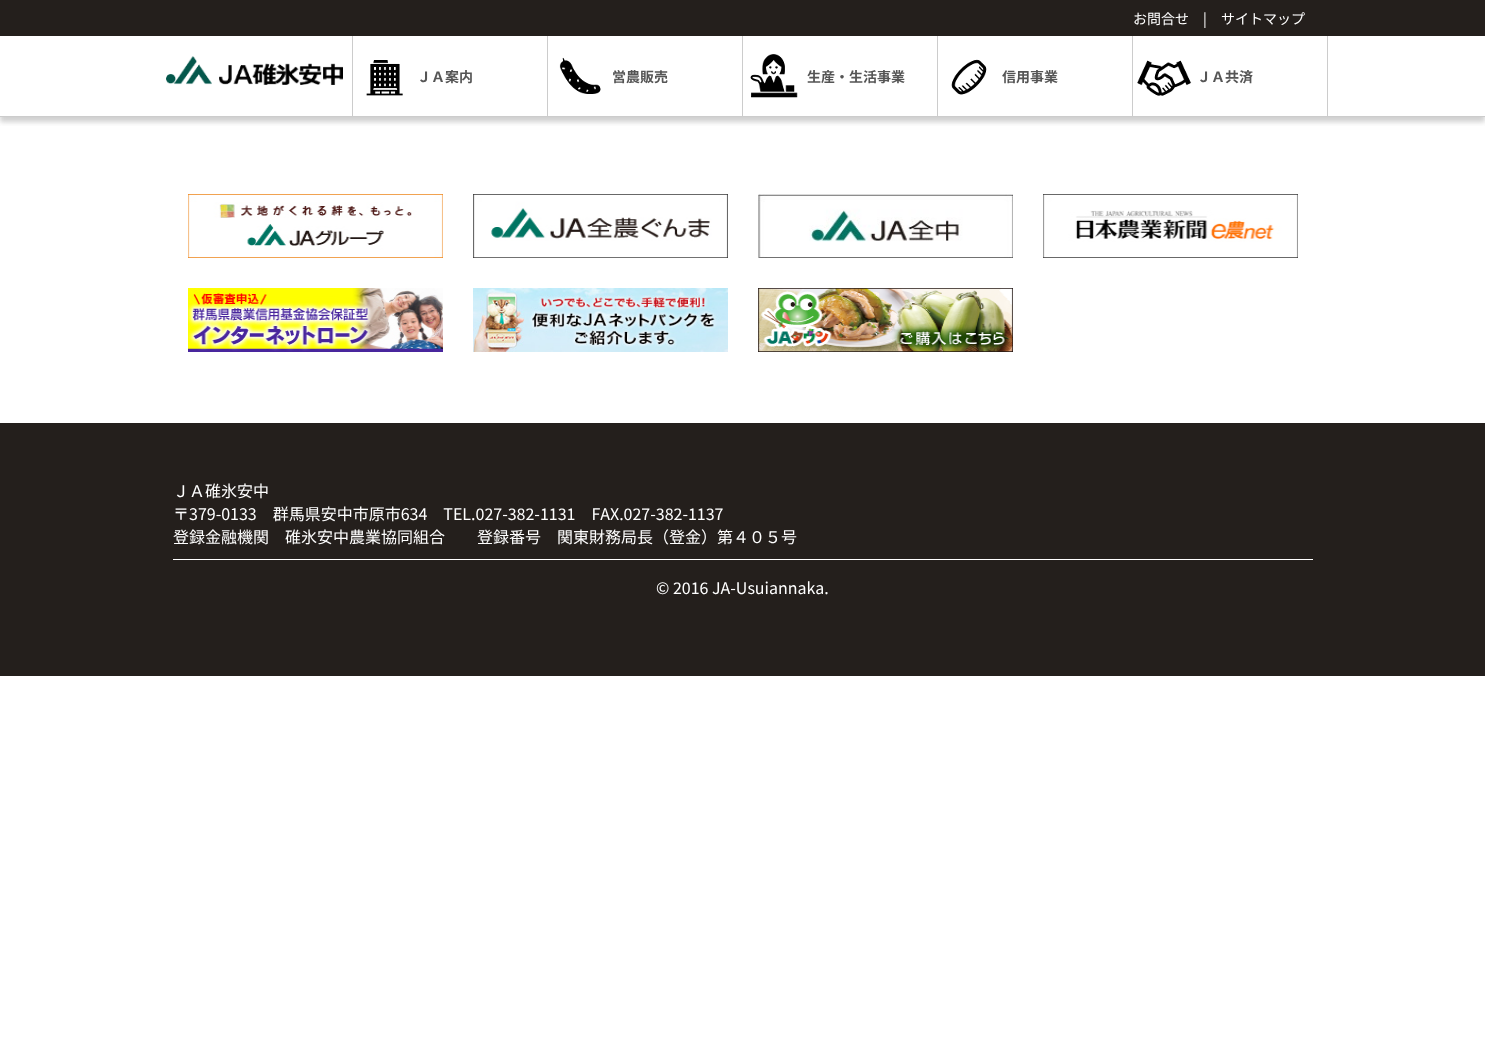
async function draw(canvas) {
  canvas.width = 1485;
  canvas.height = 1042;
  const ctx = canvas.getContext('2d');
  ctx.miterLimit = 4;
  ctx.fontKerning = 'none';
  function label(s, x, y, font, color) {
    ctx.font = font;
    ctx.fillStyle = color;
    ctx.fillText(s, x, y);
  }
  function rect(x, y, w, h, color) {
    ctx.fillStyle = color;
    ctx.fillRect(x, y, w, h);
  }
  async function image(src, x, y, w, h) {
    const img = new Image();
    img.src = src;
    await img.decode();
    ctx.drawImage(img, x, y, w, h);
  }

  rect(0, 0, 1485, 1042, '#fff');
  ctx.save();
  ctx.beginPath();
  ctx.rect(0, 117, 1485, 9);
  ctx.clip();
  ctx.fillStyle = '#6464644d';
  ctx.filter = 'blur(2.5px)';
  ctx.beginPath();
  ctx.rect(0, 5, 1485, 117);
  ctx.fill();
  ctx.filter = 'none';
  ctx.restore();
  rect(0, 116, 1485, 1, '#ccc');
  rect(0, 0, 1485, 36, '#241f1c');
  label('お問合せ', 1133, 24, '14px Noto Sans JP', '#fff');
  label('|', 1203, 24, '14px Noto Sans JP', '#fff');
  label('サイトマップ', 1221, 24, '14px Noto Sans JP', '#fff');
  rect(352, 36, 1, 80, '#ccc');
  await image('assets/img1.png', 166, 56, 177, 29);
  rect(547, 36, 1, 80, '#ccc');
  await image('assets/img2.png', 366, 60, 37, 36);
  label('ＪＡ案内', 417, 82, 'bold 14px Noto Sans JP', '#555');
  rect(742, 36, 1, 80, '#ccc');
  await image('assets/img3.png', 559, 57, 42, 37);
  label('営農販売', 612, 82, 'bold 14px Noto Sans JP', '#555');
  rect(937, 36, 1, 80, '#ccc');
  await image('assets/img4.png', 750, 54, 48, 44);
  label('生産・生活事業', 807, 82, 'bold 14px Noto Sans JP', '#555');
  rect(1132, 36, 1, 80, '#ccc');
  await image('assets/img5.png', 951, 59, 36, 36);
  label('信用事業', 1002, 82, 'bold 14px Noto Sans JP', '#555');
  rect(1327, 36, 1, 80, '#ccc');
  await image('assets/img6.png', 1137, 60, 55, 36);
  label('ＪＡ共済', 1197, 82, 'bold 14px Noto Sans JP', '#555');
  await image('assets/img7.png', 188, 194, 255, 64);
  await image('assets/img8.png', 473, 194, 255, 64);
  await image('assets/img9.png', 758, 194, 255, 64);
  await image('assets/img10.png', 1043, 194, 255, 64);
  await image('assets/img11.png', 188, 288, 255, 64);
  await image('assets/img12.png', 473, 288, 255, 64);
  await image('assets/img13.png', 758, 288, 255, 64);
  rect(0, 423, 1485, 253, '#241f1c');
  label('ＪＡ碓氷安中', 173, 497, '16px Noto Sans JP', '#fff');
  label('〒379-0133　群馬県安中市原市634　TEL.027-382-1131　FAX.027-382-1137', 173, 520, '16px Noto Sans JP', '#fff');
  label('登録金融機関　碓氷安中農業協同組合　　登録番号　関東財務局長（登金）第４０５号', 173, 543, '16px Noto Sans JP', '#fff');
  rect(173, 559, 1140, 1, '#fff');
  label('© 2016 JA-Usuiannaka.', 656, 594, '16px Noto Sans JP', '#fff');
}

draw(document.querySelector('canvas'));
